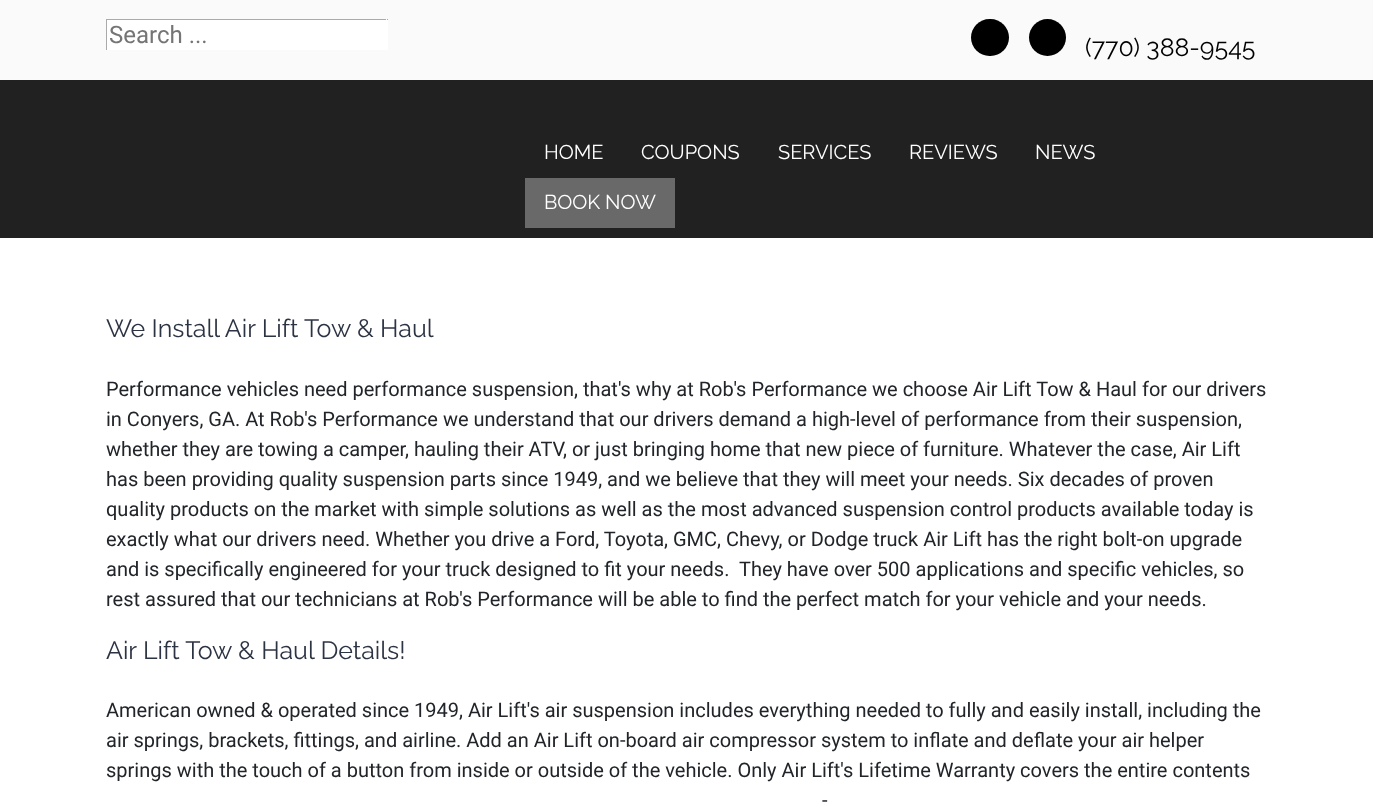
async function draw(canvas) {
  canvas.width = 1373;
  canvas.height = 803;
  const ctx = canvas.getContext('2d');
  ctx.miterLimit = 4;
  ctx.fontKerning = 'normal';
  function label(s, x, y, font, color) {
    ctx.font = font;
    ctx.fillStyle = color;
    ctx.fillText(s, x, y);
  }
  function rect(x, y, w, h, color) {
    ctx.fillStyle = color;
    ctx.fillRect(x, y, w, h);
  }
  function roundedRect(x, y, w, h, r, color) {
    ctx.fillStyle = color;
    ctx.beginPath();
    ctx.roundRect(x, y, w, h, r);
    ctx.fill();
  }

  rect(0, 0, 1373, 803, '#212121');
  rect(0, 0, 1373, 80, '#fafafa');
  rect(107, 20, 281, 30, '#fff');
  rect(106, 19, 282, 1, '#aaa');
  rect(386, 19, 1, 1, '#fff');
  rect(106, 19, 1, 31, '#aaa');
  label('Search ...', 109, 43, '24px Roboto', '#757575');
  roundedRect(971, 19, 38, 37, 18.5, '#000');
  ctx.beginPath();
  ctx.arc(1047.5, 37.5, 18.5, 0, 2 * Math.PI);
  ctx.fill();
  label('(770) 388-9545', 1085, 56, '25px Raleway', '#000');
  label('HOME', 544, 159, '20px Raleway', '#fff');
  label('COUPONS', 641, 159, '20px Raleway', '#fff');
  label('SERVICES', 778, 159, '20px Raleway', '#fff');
  label('REVIEWS', 909, 159, '20px Raleway', '#fff');
  label('NEWS', 1035, 159, '20px Raleway', '#fff');
  rect(525, 178, 150, 50, '#696969');
  label('BOOK NOW', 544, 209, '20px Raleway', '#fff');
  rect(0, 238, 1373, 565, '#fff');
  label('We Install Air Lift Tow & Haul', 106, 337, '25px Raleway', '#2c3343');
  label('Performance vehicles need performance suspension, that\'s why at Rob\'s Performance we choose Air Lift Tow & Haul for our drivers', 106, 396, '20px Roboto', '#212529');
  label('in Conyers, GA. At Rob\'s Performance we understand that our drivers demand a high-level of performance from their suspension,', 106, 426, '20px Roboto', '#212529');
  label('whether they are towing a camper, hauling their ATV, or just bringing home that new piece of furniture. Whatever the case, Air Lift', 106, 456, '20px Roboto', '#212529');
  label('has been providing quality suspension parts since 1949, and we believe that they will meet your needs. Six decades of proven', 106, 486, '20px Roboto', '#212529');
  label('quality products on the market with simple solutions as well as the most advanced suspension control products available today is', 106, 516, '20px Roboto', '#212529');
  label('exactly what our drivers need. Whether you drive a Ford, Toyota, GMC, Chevy, or Dodge truck Air Lift has the right bolt-on upgrade', 106, 546, '20px Roboto', '#212529');
  label('and is specifically engineered for your truck designed to fit your needs.  They have over 500 applications and specific vehicles, so', 106, 576, '20px Roboto', '#212529');
  label('rest assured that our technicians at Rob\'s Performance will be able to find the perfect match for your vehicle and your needs.', 106, 606, '20px Roboto', '#212529');
  label('Air Lift Tow & Haul Details!', 106, 659, '25px Raleway', '#2c3343');
  label('American owned & operated since 1949, Air Lift\'s air suspension includes everything needed to fully and easily install, including the', 106, 717, '20px Roboto', '#212529');
  label('air springs, brackets, fittings, and airline. Add an Air Lift on-board air compressor system to inflate and deflate your air helper', 106, 747, '20px Roboto', '#212529');
  label('springs with the touch of a button from inside or outside of the vehicle. Only Air Lift\'s Lifetime Warranty covers the entire contents', 106, 777, '20px Roboto', '#212529');
  label('-', 822, 807, '20px Roboto', '#212529');
}

draw(document.querySelector('canvas'));
